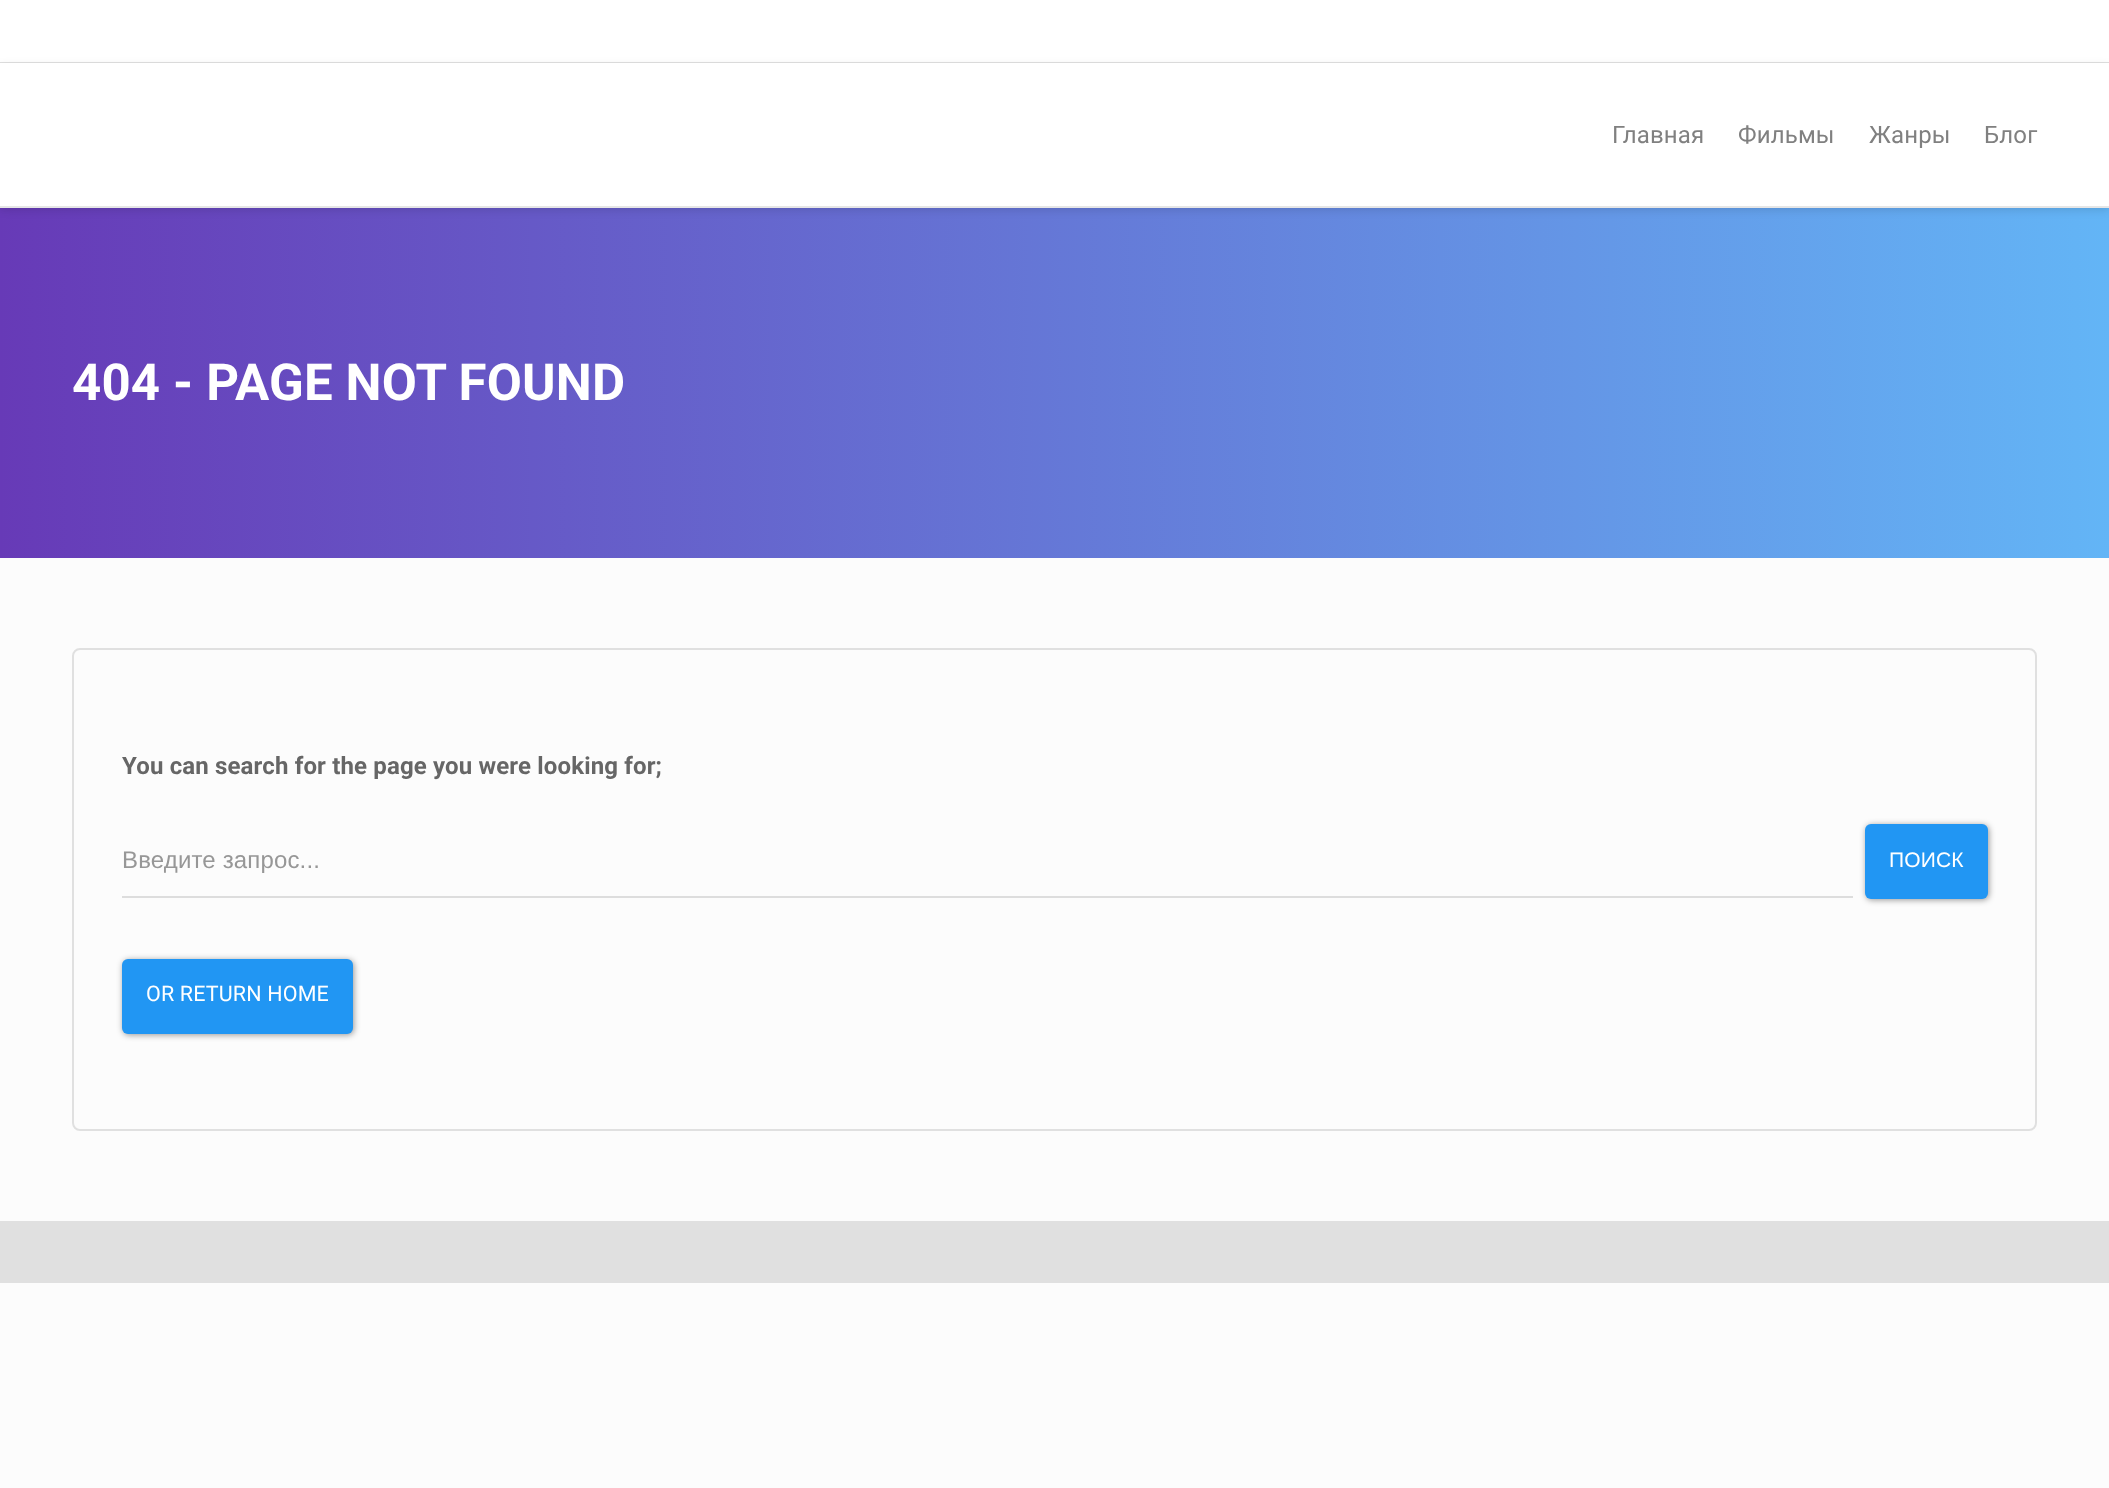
async function draw(canvas) {
  canvas.width = 2109;
  canvas.height = 1488;
  const ctx = canvas.getContext('2d');
  ctx.miterLimit = 4;
  ctx.fontKerning = 'normal';
  function label(s, x, y, font, color) {
    ctx.font = font;
    ctx.fillStyle = color;
    ctx.fillText(s, x, y);
  }
  function rect(x, y, w, h, color) {
    ctx.fillStyle = color;
    ctx.fillRect(x, y, w, h);
  }
  function roundedRect(x, y, w, h, r, color) {
    ctx.fillStyle = color;
    ctx.beginPath();
    ctx.roundRect(x, y, w, h, r);
    ctx.fill();
  }
  let gradient;

  rect(0, 0, 2109, 1488, '#fcfcfc');
  rect(0, 0, 2109, 62, '#fff');
  rect(0, 62, 2109, 1, '#e0e0e0');
  gradient = ctx.createLinearGradient(0, 383, 2109, 382);
  gradient.addColorStop(0, '#673ab7');
  gradient.addColorStop(1, '#63b5f6');
  ctx.fillStyle = gradient;
  ctx.fillRect(0, 208, 2109, 350);
  ctx.fillStyle = '#0000001f';
  ctx.filter = 'blur(4.5px)';
  ctx.beginPath();
  ctx.rect(0, 66, 2109, 144);
  ctx.fill();
  ctx.filter = 'none';
  rect(0, 63, 2109, 143, '#fff');
  rect(0, 206, 2109, 2, '#e6e6e6');
  ctx.letterSpacing = '0.15px';
  label('Главная', 1612, 143, '24px Roboto', '#808080');
  label('Фильмы', 1738, 143, '24px Roboto', '#808080');
  label('Жанры', 1869, 143, '24px Roboto', '#808080');
  label('Блог', 1984, 143, '24px Roboto', '#808080');
  label('404 - PAGE NOT FOUND', 72, 400, 'bold 51px Roboto', '#fff');
  ctx.beginPath();
  ctx.roundRect(73, 649, 1963, 481, 7);
  ctx.strokeStyle = '#e0e0e0';
  ctx.lineWidth = 2;
  ctx.stroke();
  label('You can search for the page you were looking for;', 122, 774, 'bold 24px Roboto', '#666');
  rect(122, 896, 1731, 2, '#ddd');
  label('Введите запрос...', 122, 868, '24px Liberation Sans', '#979797');
  ctx.fillStyle = '#00000066';
  ctx.filter = 'blur(3px)';
  ctx.beginPath();
  ctx.roundRect(1866, 825, 123, 75, 6);
  ctx.fill();
  ctx.filter = 'none';
  roundedRect(1865, 824, 123, 75, 6, '#2196f3');
  label('ПОИСК', 1889, 867, '21px Liberation Sans', '#fff');
  ctx.fillStyle = '#00000066';
  ctx.filter = 'blur(3px)';
  ctx.beginPath();
  ctx.roundRect(123, 960, 231, 75, 6);
  ctx.fill();
  ctx.filter = 'none';
  roundedRect(122, 959, 231, 75, 6, '#2196f3');
  label('OR RETURN HOME', 146, 1001, '21.5px Roboto', '#fff');
  rect(0, 1221, 2109, 62, '#e0e0e0');
}

draw(document.querySelector('canvas'));
